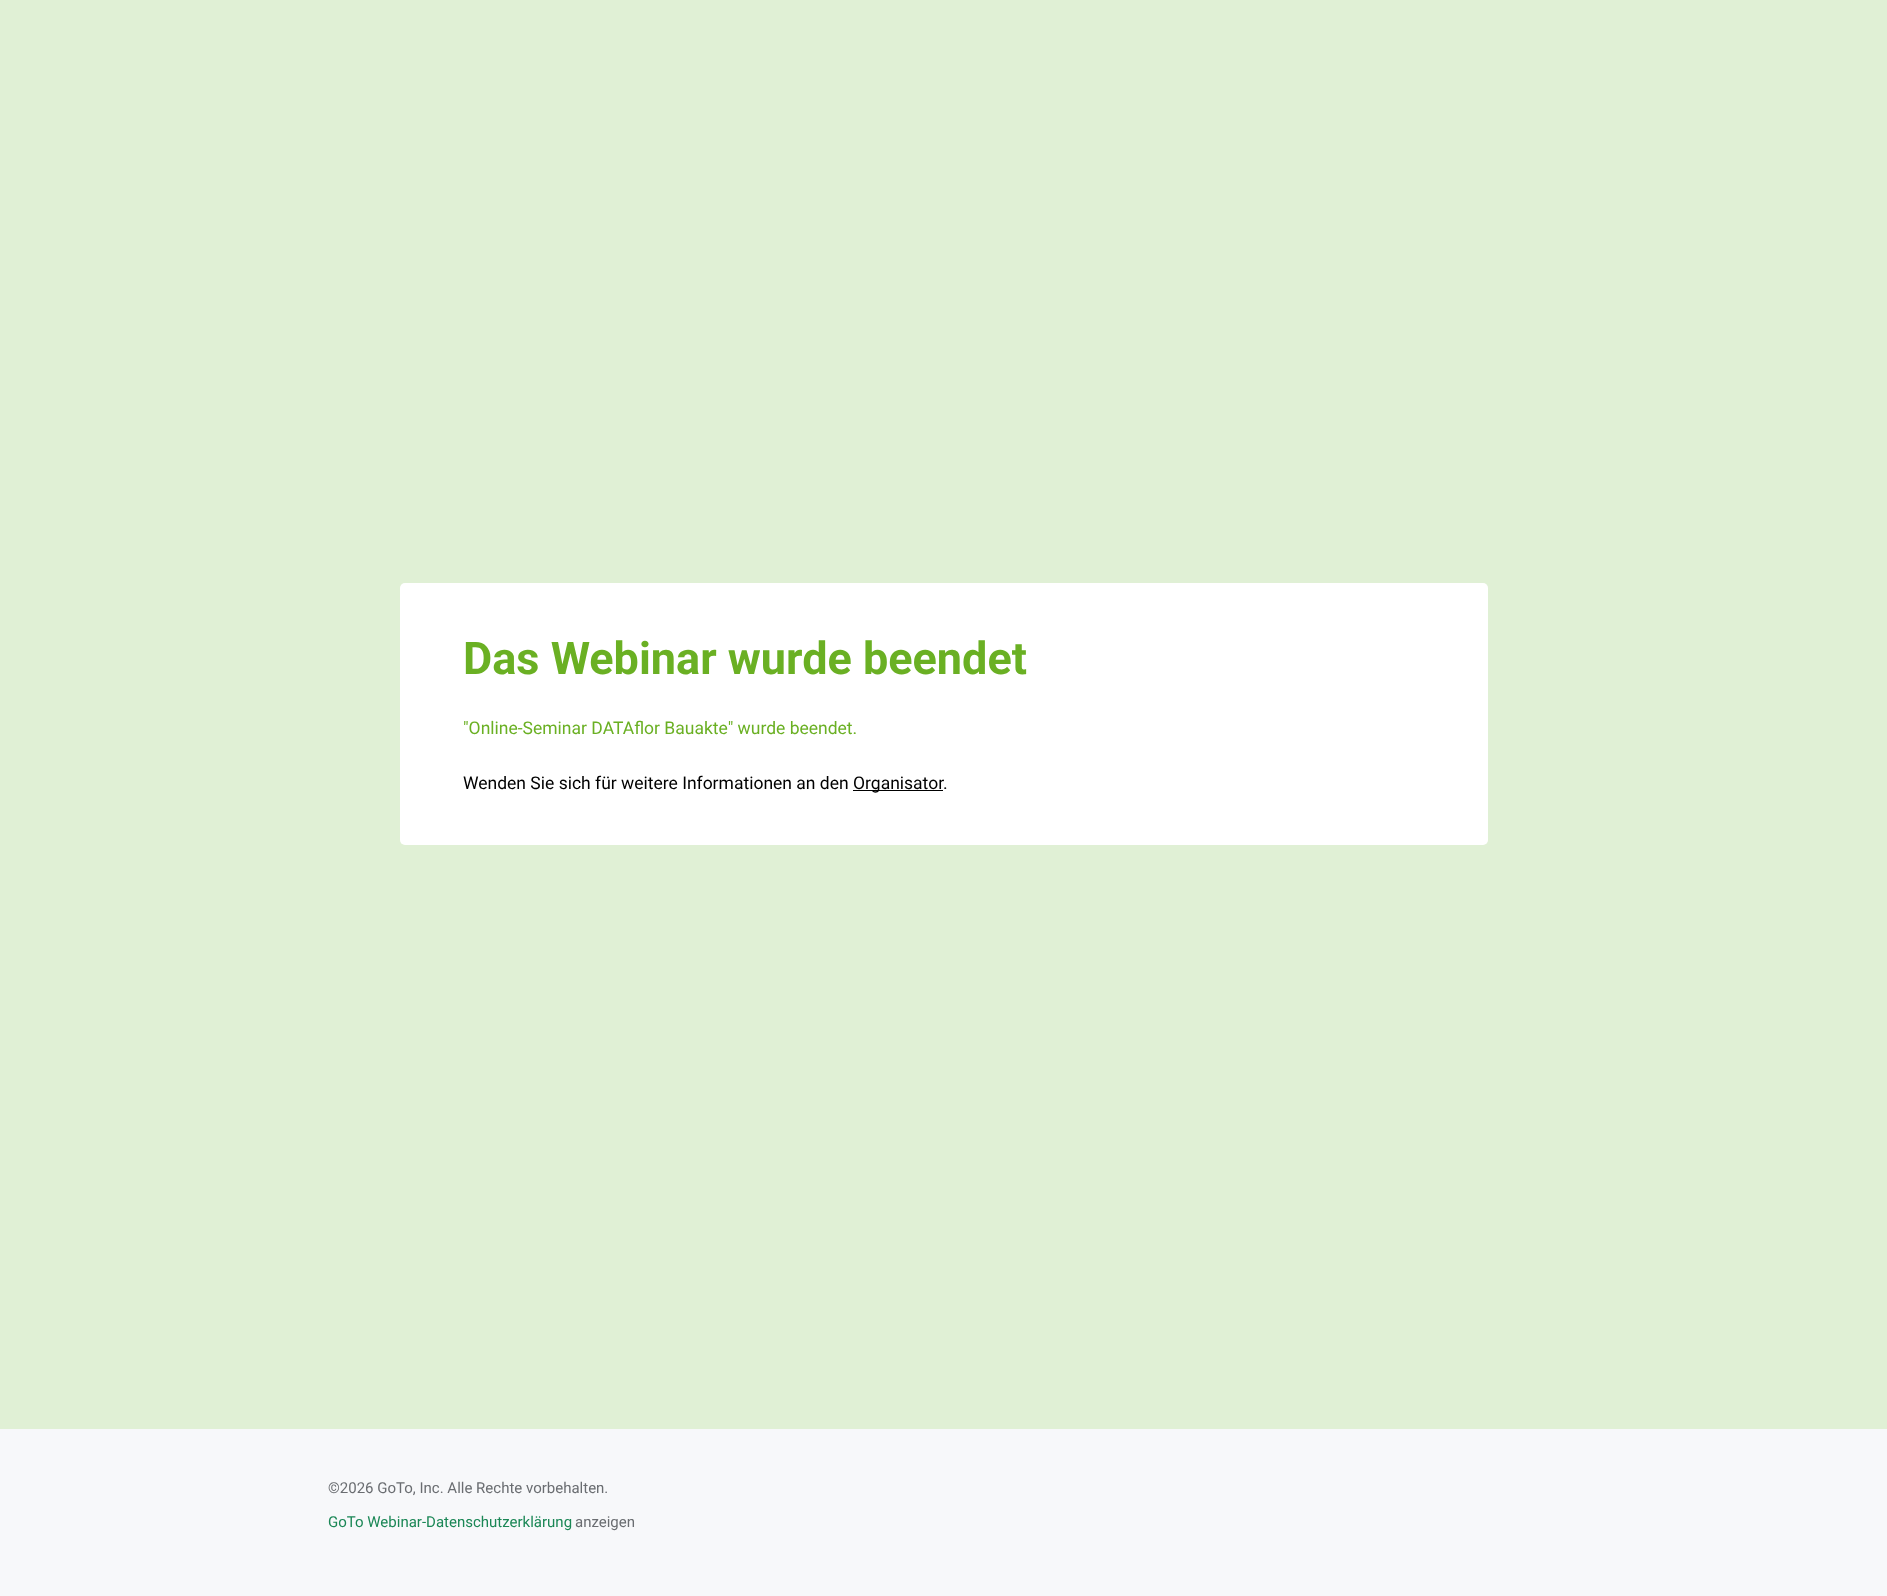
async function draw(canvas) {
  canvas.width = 1887;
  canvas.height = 1596;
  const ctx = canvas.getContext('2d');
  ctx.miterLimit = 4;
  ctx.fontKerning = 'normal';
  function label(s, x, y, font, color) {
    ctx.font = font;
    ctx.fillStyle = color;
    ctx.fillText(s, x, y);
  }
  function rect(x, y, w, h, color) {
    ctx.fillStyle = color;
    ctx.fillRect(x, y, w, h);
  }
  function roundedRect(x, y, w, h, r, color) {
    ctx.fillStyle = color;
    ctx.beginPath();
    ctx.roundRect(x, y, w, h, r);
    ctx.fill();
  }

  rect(0, 0, 1887, 1596, '#e0f0d5');
  roundedRect(400, 583, 1088, 262, 5, '#fff');
  label('Das Webinar wurde beendet', 463, 674, 'bold 45px Roboto', '#6ab023');
  label('"Online-Seminar DATAflor Bauakte" wurde beendet.', 463, 734, '17.5px Roboto', '#6ab023');
  label('Wenden Sie sich für weitere Informationen an den', 463, 789, '17.5px Roboto', '#000');
  rect(853, 790, 90, 1, '#000');
  label('Organisator', 853, 789, '17.5px Roboto', '#000');
  label('.', 943, 789, '17.5px Roboto', '#000');
  rect(0, 1429, 1887, 167, '#f7f8fa');
  label('©2026 GoTo, Inc. Alle Rechte vorbehalten.', 328, 1493, '15px Roboto', '#6a6d71');
  label('GoTo Webinar-Datenschutzerklärung', 328, 1527, '15px Roboto', '#1b8756');
  label('anzeigen', 575, 1527, '15px Roboto', '#6a6d71');
}

draw(document.querySelector('canvas'));
